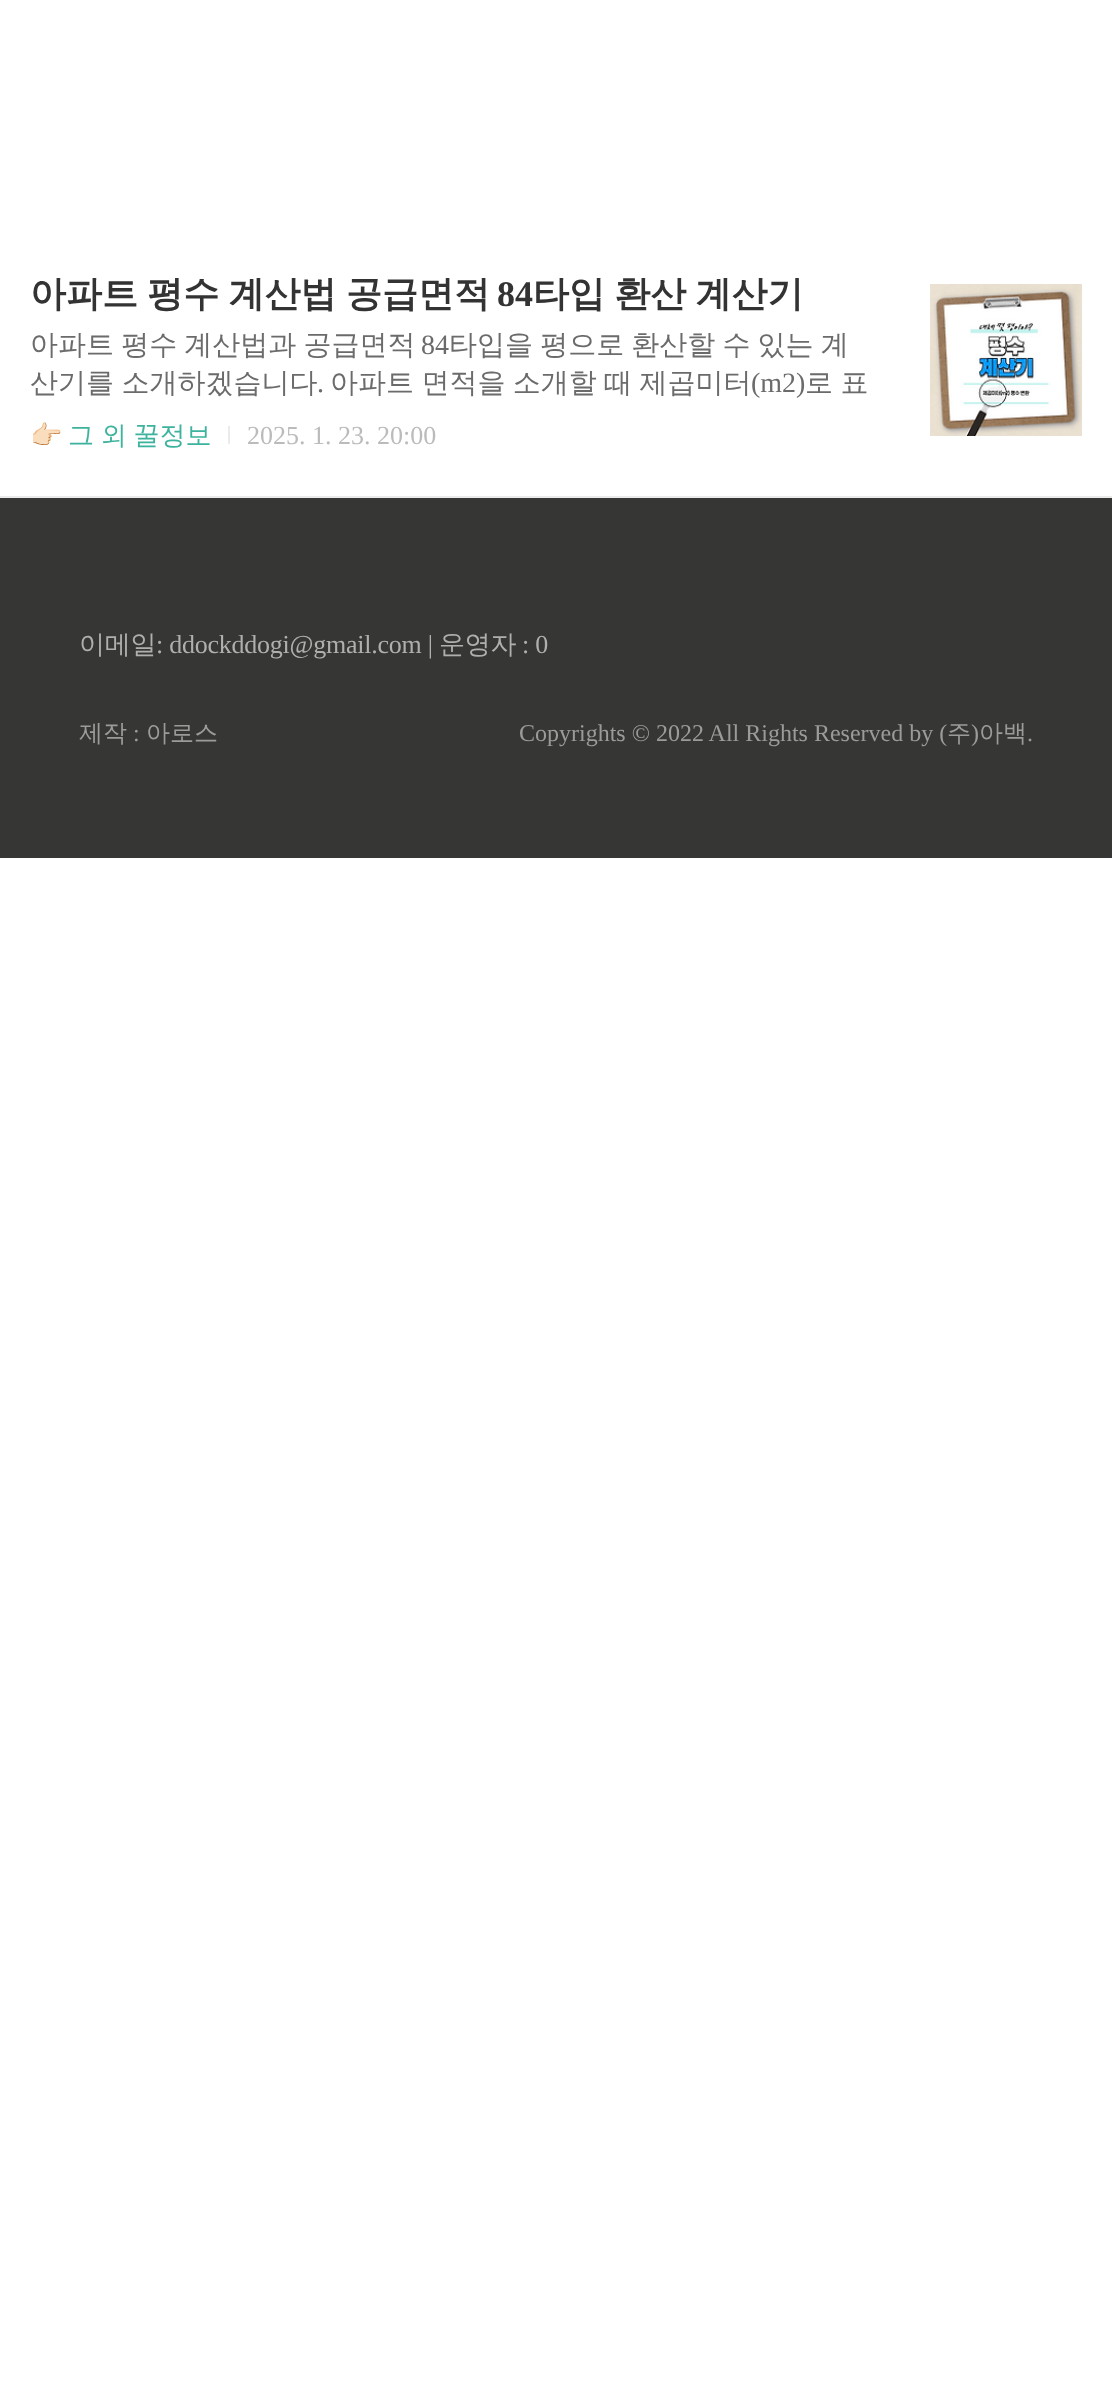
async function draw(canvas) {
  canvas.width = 1112;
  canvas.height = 2398;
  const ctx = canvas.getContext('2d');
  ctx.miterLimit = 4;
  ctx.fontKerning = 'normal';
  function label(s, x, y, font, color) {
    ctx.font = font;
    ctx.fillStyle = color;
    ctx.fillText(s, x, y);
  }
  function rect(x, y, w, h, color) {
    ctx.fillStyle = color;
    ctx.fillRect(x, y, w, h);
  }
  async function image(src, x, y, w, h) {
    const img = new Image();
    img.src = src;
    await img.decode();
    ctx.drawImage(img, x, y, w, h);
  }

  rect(0, 0, 1112, 2398, '#fff');
  rect(0, 496, 1112, 2, '#ebebeb');
  ctx.wordSpacing = '-1.5px';
  label('아파트 평수 계산법 공급면적', 30, 306, 'bold 36px WenQuanYi Zen Hei', '#333');
  ctx.wordSpacing = '0px';
  label('84', 497, 306, 'bold 36px Liberation Serif', '#333');
  ctx.wordSpacing = '-1.5px';
  label('타입 환산 계산기', 533, 306, 'bold 36px WenQuanYi Zen Hei', '#333');
  ctx.wordSpacing = '-1.25px';
  label('아파트 평수 계산법과 공급면적', 30, 354, '500 28px WenQuanYi Zen Hei', '#6b6b6b');
  ctx.wordSpacing = '0px';
  label('84', 421, 354, '28px Liberation Serif', '#6b6b6b');
  ctx.wordSpacing = '-1.25px';
  label('타입을 평으로 환산할 수 있는 계', 449, 354, '500 28px WenQuanYi Zen Hei', '#6b6b6b');
  ctx.wordSpacing = '-1px';
  label('산기를 소개하겠습니다', 30, 392, '500 28px WenQuanYi Zen Hei', '#6b6b6b');
  ctx.wordSpacing = '0px';
  label('.', 317, 392, '28px Liberation Serif', '#6b6b6b');
  ctx.wordSpacing = '-1px';
  label('아파트 면적을 소개할 때 제곱미터', 330, 392, '500 28px WenQuanYi Zen Hei', '#6b6b6b');
  ctx.wordSpacing = '0px';
  label('(m2)', 751, 392, '28px Liberation Serif', '#6b6b6b');
  ctx.wordSpacing = '-1px';
  label('로 표', 805, 392, '500 28px WenQuanYi Zen Hei', '#6b6b6b');
  await image('assets/img1.png', 930, 284, 152, 152);
  ctx.wordSpacing = '0px';
  label('👉🏻', 30, 444, '26px Noto Color Emoji', '#3db39e');
  ctx.wordSpacing = '-1px';
  label('그 외 꿀정보', 68, 444, '500 26px WenQuanYi Zen Hei', '#3db39e');
  rect(228, 426, 2, 18, '#ebebeb');
  ctx.wordSpacing = '0px';
  label('2025. 1. 23. 20:00', 247, 444, '26px Liberation Serif', '#bbb');
  rect(0, 498, 1112, 360, '#363634');
  ctx.letterSpacing = '-0.25px';
  label('이메일', 79, 653, '500 26px WenQuanYi Zen Hei', '#afafae');
  label(': ddockddogi@gmail.com |', 156, 653, '26px Liberation Serif', '#afafae');
  label('운영자', 439, 653, '500 26px WenQuanYi Zen Hei', '#afafae');
  label(': 0', 522, 653, '26px Liberation Serif', '#afafae');
  ctx.letterSpacing = '0px';
  label('제작', 79, 741, '500 24px WenQuanYi Zen Hei', '#9b9b9a');
  label(':', 133, 741, '24px Liberation Serif', '#9b9b9a');
  label('아로스', 146, 741, '500 24px WenQuanYi Zen Hei', '#9b9b9a');
  label('Copyrights © 2022 All Rights Reserved by (', 519, 741, '24px Liberation Serif', '#9b9b9a');
  label('주', 947, 741, '500 24px WenQuanYi Zen Hei', '#9b9b9a');
  label(')', 971, 741, '24px Liberation Serif', '#9b9b9a');
  label('아백', 979, 741, '500 24px WenQuanYi Zen Hei', '#9b9b9a');
  label('.', 1027, 741, '24px Liberation Serif', '#9b9b9a');
}

draw(document.querySelector('canvas'));
